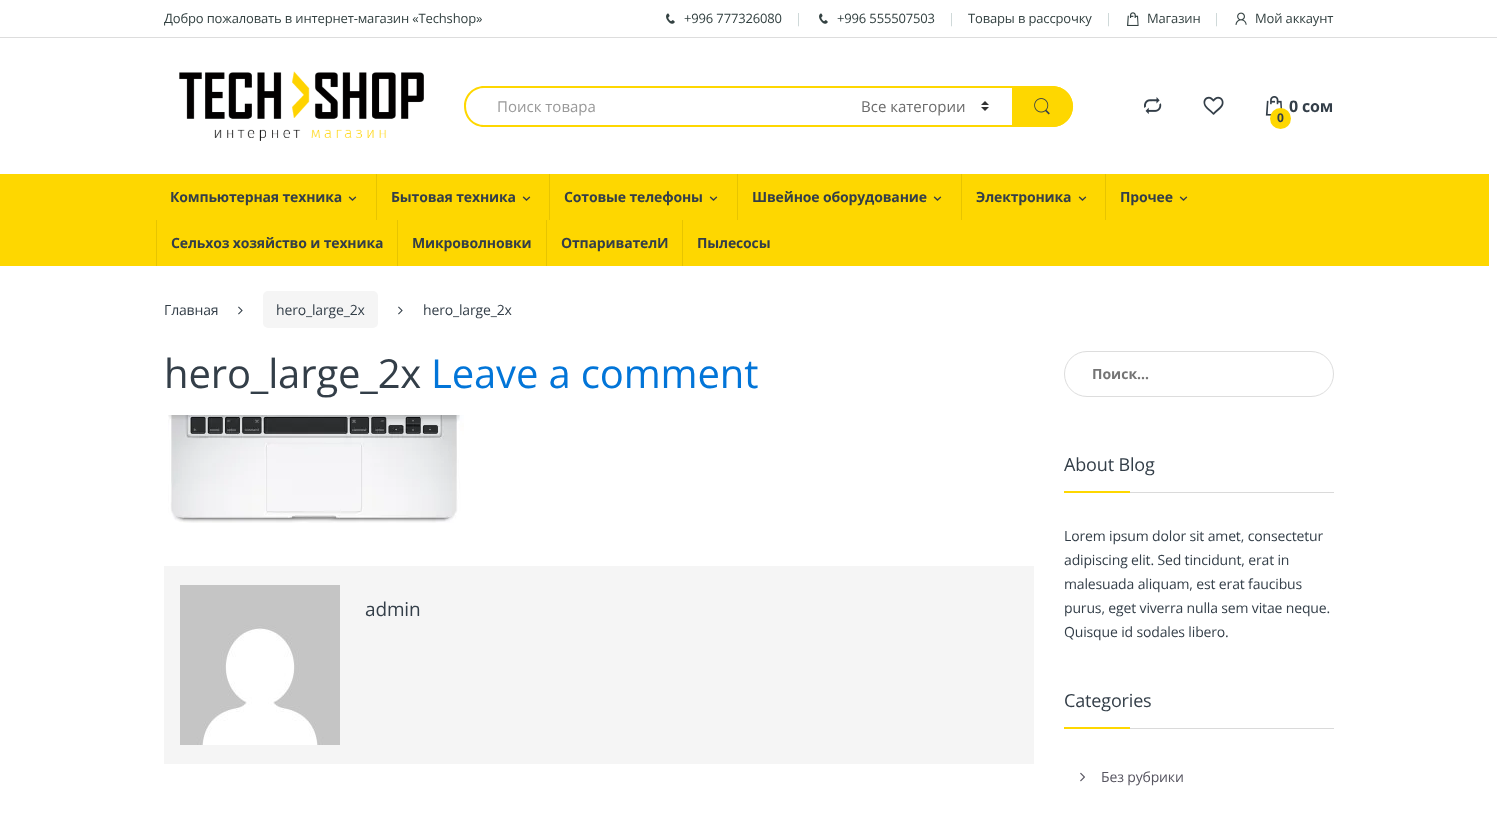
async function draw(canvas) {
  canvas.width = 1497;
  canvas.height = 817;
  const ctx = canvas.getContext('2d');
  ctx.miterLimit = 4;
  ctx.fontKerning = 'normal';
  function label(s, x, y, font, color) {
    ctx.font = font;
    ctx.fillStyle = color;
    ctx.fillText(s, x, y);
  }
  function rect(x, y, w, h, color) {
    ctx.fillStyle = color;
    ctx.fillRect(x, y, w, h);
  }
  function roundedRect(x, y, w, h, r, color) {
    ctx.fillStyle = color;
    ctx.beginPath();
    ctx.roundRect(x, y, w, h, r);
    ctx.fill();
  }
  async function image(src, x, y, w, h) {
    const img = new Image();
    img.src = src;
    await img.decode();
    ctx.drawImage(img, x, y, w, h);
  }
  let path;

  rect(0, 0, 1497, 817, '#fff');
  rect(0, 37, 1497, 1, '#ddd');
  ctx.letterSpacing = '-0.15px';
  label('Добро пожаловать в интернет-магазин «Techshop»', 164, 23, '13px Open Sans', '#334141');
  await image('assets/img1.png', 666, 13, 9, 11);
  label('+996 777326080', 684, 23, '13px Open Sans', '#334141');
  label('|', 795, 23, '13px Open Sans', '#cad5d5');
  await image('assets/img1.png', 819, 13, 9, 11);
  label('+996 555507503', 837, 23, '13px Open Sans', '#334141');
  label('|', 948, 23, '13px Open Sans', '#cad5d5');
  label('Товары в рассрочку', 968, 23, '13px Open Sans', '#334141');
  label('|', 1105, 23, '13px Open Sans', '#cad5d5');
  await image('assets/img2.png', 1127, 12, 12, 14);
  label('Магазин', 1147, 23, '13px Open Sans', '#334141');
  label('|', 1213, 23, '13px Open Sans', '#cad5d5');
  await image('assets/img3.png', 1235, 12, 12, 13);
  label('Мой аккаунт', 1255, 23, '13px Open Sans', '#334141');
  await image('assets/img4.png', 179, 71, 245, 70);
  rect(837, 86, 176, 2, '#fed700');
  rect(837, 125, 176, 2, '#fed700');
  ctx.fillStyle = '#fff';
  ctx.beginPath();
  ctx.roundRect(464, 86, 374, 41, [20.5, 0, 0, 20.5]);
  ctx.fill();
  ctx.fillStyle = '#fed700';
  path = new Path2D('M484 86H838V127H484C473 127 464 118 464 106C464 95 473 86 484 86ZM484 88H838V125H484C474 125 466 117 466 106C466 96 474 88 484 88Z');
  ctx.fill(path, 'evenodd');
  ctx.letterSpacing = '0px';
  label('Поиск товара', 497, 112, '15px Open Sans', '#999');
  await image('assets/img5.png', 981, 101, 8, 10);
  label('Все категории', 861, 112, '15px Open Sans', '#6b6b6b');
  ctx.fillStyle = '#fed700';
  ctx.beginPath();
  ctx.roundRect(1012, 86, 61, 41, [0, 20.5, 20.5, 0]);
  ctx.fill();
  path = new Path2D('M1012 86H1052C1064 86 1073 95 1073 106C1073 118 1064 127 1052 127H1012ZM1012 88H1052C1063 88 1071 96 1071 106C1071 117 1063 125 1052 125H1012Z');
  ctx.fill(path, 'evenodd');
  await image('assets/img6.png', 1034, 98, 16, 17);
  await image('assets/img7.png', 1144, 97, 18, 17);
  await image('assets/img8.png', 1203, 96, 21, 19);
  await image('assets/img9.png', 1265, 96, 18, 20);
  ctx.letterSpacing = '-0.15px';
  label('0 сом', 1289, 112, 'bold 16px Open Sans', '#333e48');
  ctx.fillStyle = '#fed700';
  ctx.beginPath();
  ctx.arc(1280.5, 118.5, 10.5, 0, 2 * Math.PI);
  ctx.fill();
  label('0', 1277, 122, 'bold 12px Open Sans', '#333e48');
  rect(0, 174, 1489, 92, '#fed700');
  label('Компьютерная техника', 170, 202, 'bold 14px Open Sans', '#333e48');
  await image('assets/img10.png', 348, 196, 9, 5);
  rect(376, 174, 1, 46, '#e7c400');
  label('Бытовая техника', 391, 202, 'bold 14px Open Sans', '#333e48');
  await image('assets/img10.png', 522, 196, 9, 5);
  rect(549, 174, 1, 46, '#e7c400');
  label('Сотовые телефоны', 564, 202, 'bold 14px Open Sans', '#333e48');
  await image('assets/img10.png', 709, 196, 9, 5);
  rect(737, 174, 1, 46, '#e7c400');
  label('Швейное оборудование', 752, 202, 'bold 14px Open Sans', '#333e48');
  await image('assets/img10.png', 933, 196, 9, 5);
  rect(961, 174, 1, 46, '#e7c400');
  label('Электроника', 976, 202, 'bold 14px Open Sans', '#333e48');
  await image('assets/img10.png', 1078, 196, 9, 5);
  rect(1105, 174, 1, 46, '#e7c400');
  label('Прочее', 1120, 202, 'bold 14px Open Sans', '#333e48');
  await image('assets/img10.png', 1179, 196, 9, 5);
  rect(156, 220, 1, 46, '#e7c400');
  label('Сельхоз хозяйство и техника', 171, 248, 'bold 14px Open Sans', '#333e48');
  rect(397, 220, 1, 46, '#e7c400');
  label('Микроволновки', 412, 248, 'bold 14px Open Sans', '#333e48');
  rect(546, 220, 1, 46, '#e7c400');
  label('ОтпаривателИ', 561, 248, 'bold 14px Open Sans', '#333e48');
  rect(682, 220, 1, 46, '#e7c400');
  label('Пылесосы', 697, 248, 'bold 14px Open Sans', '#333e48');
  label('Главная', 164, 315, '14px Open Sans', '#333e48');
  await image('assets/img11.png', 238, 306, 5, 9);
  roundedRect(263, 291, 115, 37, 5, '#f5f5f5');
  label('hero_large_2x', 276, 315, '14px Open Sans', '#333e48');
  await image('assets/img11.png', 398, 306, 5, 9);
  label('hero_large_2x', 423, 315, '14px Open Sans', '#333e48');
  label('hero_large_2x', 164, 388, '40px Open Sans', '#333e48');
  label('Leave a comment', 431, 388, '40px Open Sans', '#0275d8');
  await image('assets/img12.png', 168, 415, 296, 108);
  rect(164, 566, 870, 198, '#f5f5f5');
  await image('assets/img13.png', 180, 585, 160, 160);
  label('admin', 365, 616, '19px Open Sans', '#333e48');
  ctx.beginPath();
  ctx.roundRect(1064.5, 351.5, 269, 45, 22.5);
  ctx.strokeStyle = '#ddd';
  ctx.stroke();
  ctx.letterSpacing = '0px';
  label('Поиск…', 1092, 379, 'bold 14px Open Sans', '#757575');
  rect(1130, 492, 204, 1, '#dadada');
  ctx.letterSpacing = '-0.15px';
  label('About Blog', 1064, 471, '18px Open Sans', '#333e48');
  rect(1064, 491, 66, 2, '#fed700');
  label('Lorem ipsum dolor sit amet, consectetur', 1064, 541, '14px Open Sans', '#333e48');
  label('adipiscing elit. Sed tincidunt, erat in', 1064, 565, '14px Open Sans', '#333e48');
  label('malesuada aliquam, est erat faucibus', 1064, 589, '14px Open Sans', '#333e48');
  label('purus, eget viverra nulla sem vitae neque.', 1064, 613, '14px Open Sans', '#333e48');
  label('Quisque id sodales libero.', 1064, 637, '14px Open Sans', '#333e48');
  rect(1130, 728, 204, 1, '#dadada');
  label('Categories', 1064, 707, '18px Open Sans', '#333e48');
  rect(1064, 727, 66, 2, '#fed700');
  await image('assets/img14.png', 1080, 772, 5, 10);
  label('Без рубрики', 1101, 782, '14px Open Sans', '#575560');
}

draw(document.querySelector('canvas'));
